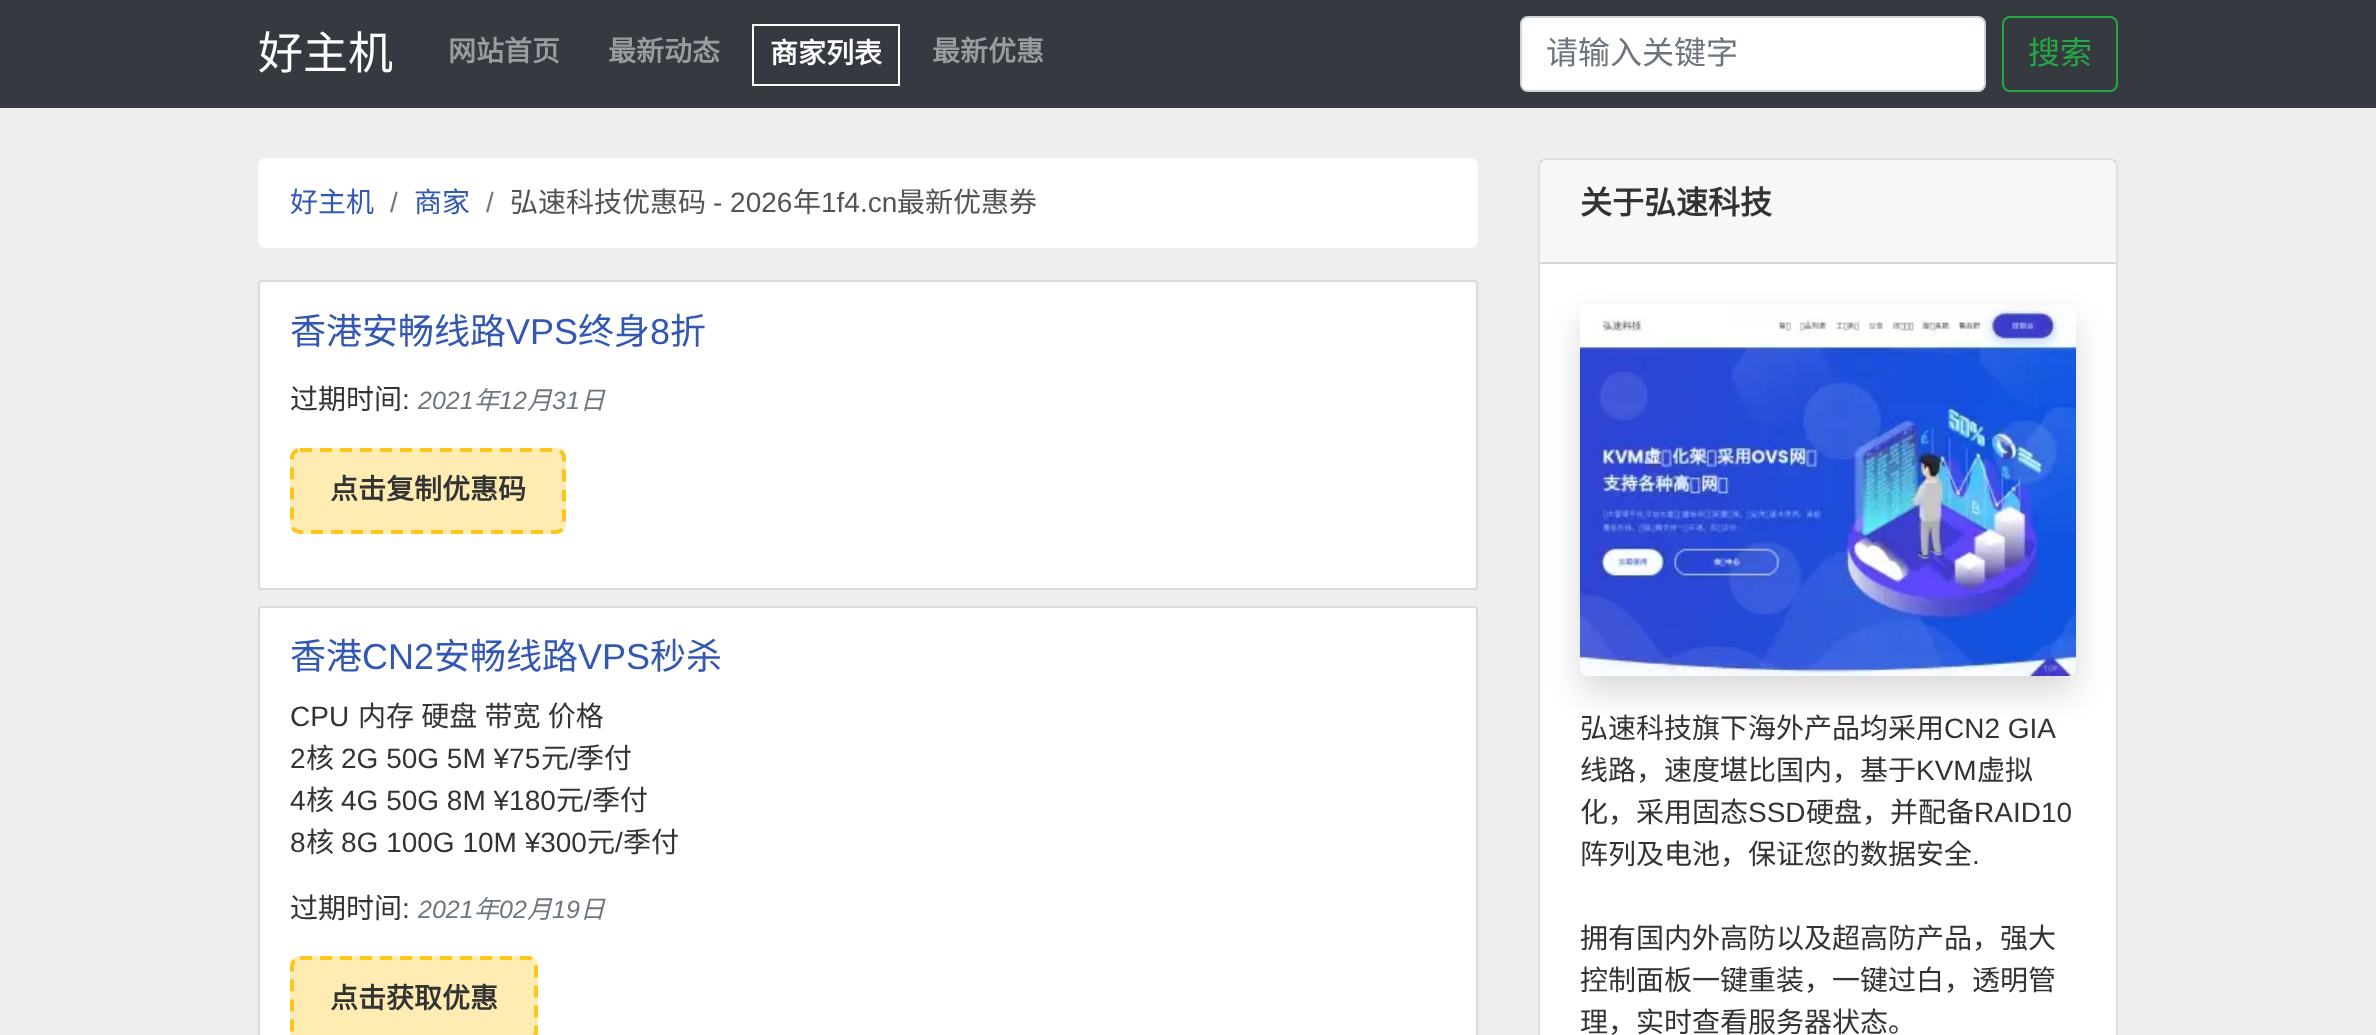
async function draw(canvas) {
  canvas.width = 2376;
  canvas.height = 1035;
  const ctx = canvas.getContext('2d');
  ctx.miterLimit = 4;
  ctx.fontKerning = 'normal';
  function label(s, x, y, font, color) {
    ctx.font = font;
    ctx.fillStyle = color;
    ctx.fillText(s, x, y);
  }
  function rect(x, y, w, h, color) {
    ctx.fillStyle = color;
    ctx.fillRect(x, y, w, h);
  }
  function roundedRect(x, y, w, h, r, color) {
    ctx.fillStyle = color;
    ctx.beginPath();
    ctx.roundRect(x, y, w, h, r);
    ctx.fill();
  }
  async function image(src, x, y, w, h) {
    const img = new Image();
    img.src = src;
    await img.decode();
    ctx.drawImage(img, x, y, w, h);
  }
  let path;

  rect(0, 0, 2376, 1035, '#eee');
  rect(0, 0, 2376, 108, '#343a40');
  label('好主机', 258, 69, '45px Noto Sans CJK SC', '#fff');
  label('网站首页', 448, 61, 'bold 28px Noto Sans CJK SC', '#9a9da0');
  label('最新动态', 608, 61, 'bold 28px Noto Sans CJK SC', '#9a9da0');
  ctx.strokeStyle = '#fff';
  ctx.lineWidth = 2;
  ctx.strokeRect(753, 25, 146, 60);
  label('商家列表', 770, 63, 'bold 28px Noto Sans CJK SC', '#fff');
  label('最新优惠', 932, 61, 'bold 28px Noto Sans CJK SC', '#9a9da0');
  ctx.fillStyle = '#fff';
  ctx.beginPath();
  ctx.roundRect(1521, 17, 464, 74, 7);
  ctx.fill();
  ctx.strokeStyle = '#ced4da';
  ctx.stroke();
  label('请输入关键字', 1546, 64, '32px Noto Sans CJK SC', '#6c757d');
  ctx.beginPath();
  ctx.roundRect(2003, 17, 114, 74, 7);
  ctx.strokeStyle = '#28a745';
  ctx.stroke();
  label('搜索', 2028, 64, '32px Noto Sans CJK SC', '#28a745');
  roundedRect(258, 158, 1220, 90, 8, '#fff');
  label('好主机', 290, 212, '28px Noto Sans CJK SC', '#3258b3');
  label('/', 390, 212, '28px Liberation Sans', '#6c757d');
  label('商家', 414, 212, '28px Noto Sans CJK SC', '#3258b3');
  label('/', 486, 212, '28px Liberation Sans', '#6c757d');
  label('弘速科技优惠码', 510, 212, '28px Noto Sans CJK SC', '#535353');
  label('- 2026', 713, 212, '28px Liberation Sans', '#535353');
  label('年', 793, 212, '28px Noto Sans CJK SC', '#535353');
  label('1f4.cn', 821, 212, '28px Liberation Sans', '#535353');
  label('最新优惠券', 897, 212, '28px Noto Sans CJK SC', '#535353');
  ctx.fillStyle = '#fff';
  ctx.beginPath();
  ctx.roundRect(259, 281, 1218, 308, 3);
  ctx.fill();
  ctx.strokeStyle = '#dadada';
  ctx.stroke();
  label('香港安畅线路', 290, 344, '36px Noto Sans CJK SC', '#3258b3');
  label('VPS', 506, 344, '36px Liberation Sans', '#3258b3');
  label('终身', 578, 344, '36px Noto Sans CJK SC', '#3258b3');
  label('8', 650, 344, '36px Liberation Sans', '#3258b3');
  label('折', 670, 344, '36px Noto Sans CJK SC', '#3258b3');
  label('过期时间', 290, 409, '28px Noto Sans CJK SC', '#333');
  label(':', 402, 409, '28px Liberation Sans', '#333');
  label('2021', 418, 409, 'italic 25px Liberation Sans', '#6c757d');
  label('年', 474, 409, 'italic 25px Noto Sans CJK SC', '#6c757d');
  label('12', 499, 409, 'italic 25px Liberation Sans', '#6c757d');
  label('月', 527, 409, 'italic 25px Noto Sans CJK SC', '#6c757d');
  label('31', 552, 409, 'italic 25px Liberation Sans', '#6c757d');
  label('日', 580, 409, 'italic 25px Noto Sans CJK SC', '#6c757d');
  roundedRect(290, 448, 276, 86, 10, '#ffecb3');
  path = new Path2D('M300 450H556C560.5 450 564 453.5 564 458V524C564 528.5 560.5 532 556 532H300C295.5 532 292 528.5 292 524V458C292 453.5 295.5 450 300 450Z');
  ctx.strokeStyle = '#ffc61a';
  ctx.lineWidth = 4;
  ctx.setLineDash([12, 8]);
  ctx.stroke(path);
  label('点击复制优惠码', 330, 499, 'bold 28px Noto Sans CJK SC', '#333');
  ctx.fillStyle = '#fff';
  ctx.beginPath();
  ctx.roundRect(259, 607, 1218, 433, 3);
  ctx.fill();
  ctx.strokeStyle = '#dadada';
  ctx.lineWidth = 2;
  ctx.setLineDash([]);
  ctx.stroke();
  label('香港', 290, 669, '36px Noto Sans CJK SC', '#3258b3');
  label('CN2', 362, 669, '36px Liberation Sans', '#3258b3');
  label('安畅线路', 434, 669, '36px Noto Sans CJK SC', '#3258b3');
  label('VPS', 578, 669, '36px Liberation Sans', '#3258b3');
  label('秒杀', 650, 669, '36px Noto Sans CJK SC', '#3258b3');
  label('CPU', 290, 726, '28px Liberation Sans', '#333');
  ctx.wordSpacing = '1px';
  label('内存 硬盘 带宽 价格', 358, 726, '28px Noto Sans CJK SC', '#333');
  ctx.wordSpacing = '0px';
  label('2', 290, 768, '28px Liberation Sans', '#333');
  label('核', 306, 768, '28px Noto Sans CJK SC', '#333');
  label('2G 50G 5M ¥75', 341, 768, '28px Liberation Sans', '#333');
  label('元', 541, 768, '28px Noto Sans CJK SC', '#333');
  label('/', 569, 768, '28px Liberation Sans', '#333');
  label('季付', 576, 768, '28px Noto Sans CJK SC', '#333');
  label('4', 290, 810, '28px Liberation Sans', '#333');
  label('核', 306, 810, '28px Noto Sans CJK SC', '#333');
  label('4G 50G 8M ¥180', 341, 810, '28px Liberation Sans', '#333');
  label('元', 556, 810, '28px Noto Sans CJK SC', '#333');
  label('/', 584, 810, '28px Liberation Sans', '#333');
  label('季付', 592, 810, '28px Noto Sans CJK SC', '#333');
  label('8', 290, 852, '28px Liberation Sans', '#333');
  label('核', 306, 852, '28px Noto Sans CJK SC', '#333');
  label('8G 100G 10M ¥300', 341, 852, '28px Liberation Sans', '#333');
  label('元', 587, 852, '28px Noto Sans CJK SC', '#333');
  label('/', 615, 852, '28px Liberation Sans', '#333');
  label('季付', 623, 852, '28px Noto Sans CJK SC', '#333');
  label('过期时间', 290, 918, '28px Noto Sans CJK SC', '#333');
  label(':', 402, 918, '28px Liberation Sans', '#333');
  label('2021', 418, 918, 'italic 25px Liberation Sans', '#6c757d');
  label('年', 474, 918, 'italic 25px Noto Sans CJK SC', '#6c757d');
  label('02', 499, 918, 'italic 25px Liberation Sans', '#6c757d');
  label('月', 527, 918, 'italic 25px Noto Sans CJK SC', '#6c757d');
  label('19', 552, 918, 'italic 25px Liberation Sans', '#6c757d');
  label('日', 580, 918, 'italic 25px Noto Sans CJK SC', '#6c757d');
  roundedRect(290, 956, 248, 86, 10, '#ffecb3');
  path = new Path2D('M300 958H528C532.5 958 536 961.5 536 966V1032C536 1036.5 532.5 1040 528 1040H300C295.5 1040 292 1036.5 292 1032V966C292 961.5 295.5 958 300 958Z');
  ctx.strokeStyle = '#ffc61a';
  ctx.lineWidth = 4;
  ctx.setLineDash([12, 8]);
  ctx.stroke(path);
  label('点击获取优惠', 330, 1008, 'bold 28px Noto Sans CJK SC', '#333');
  roundedRect(1538, 158, 580, 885, 8, '#fff');
  ctx.beginPath();
  ctx.roundRect(1539, 159, 578, 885, 7);
  ctx.strokeStyle = '#0000001f';
  ctx.lineWidth = 2;
  ctx.setLineDash([]);
  ctx.stroke();
  rect(1540, 160, 576, 102, '#00000008');
  rect(1540, 262, 576, 2, '#d8d8d8');
  label('关于弘速科技', 1580, 214, 'bold 32px Noto Sans CJK SC', '#333');
  ctx.fillStyle = '#00000026';
  ctx.filter = 'blur(16px)';
  ctx.beginPath();
  ctx.roundRect(1580, 320, 496, 372, 8);
  ctx.fill();
  ctx.filter = 'none';
  await image('assets/img1.png', 1580, 304, 496, 372);
  label('弘速科技旗下海外产品均采用', 1580, 738, '28px Noto Sans CJK SC', '#333');
  label('CN2 GIA', 1944, 738, '28px Liberation Sans', '#333');
  label('线路，速度堪比国内，基于', 1580, 780, '28px Noto Sans CJK SC', '#333');
  label('KVM', 1916, 780, '28px Liberation Sans', '#333');
  label('虚拟', 1977, 780, '28px Noto Sans CJK SC', '#333');
  label('化，采用固态', 1580, 822, '28px Noto Sans CJK SC', '#333');
  label('SSD', 1748, 822, '28px Liberation Sans', '#333');
  label('硬盘，并配备', 1806, 822, '28px Noto Sans CJK SC', '#333');
  label('RAID10', 1974, 822, '28px Liberation Sans', '#333');
  label('阵列及电池，保证您的数据安全', 1580, 864, '28px Noto Sans CJK SC', '#333');
  label('.', 1972, 864, '28px Liberation Sans', '#333');
  label('拥有国内外高防以及超高防产品，强大', 1580, 948, '28px Noto Sans CJK SC', '#333');
  label('控制面板一键重装，一键过白，透明管', 1580, 990, '28px Noto Sans CJK SC', '#333');
  label('理，实时查看服务器状态。', 1580, 1032, '28px Noto Sans CJK SC', '#333');
}

draw(document.querySelector('canvas'));
